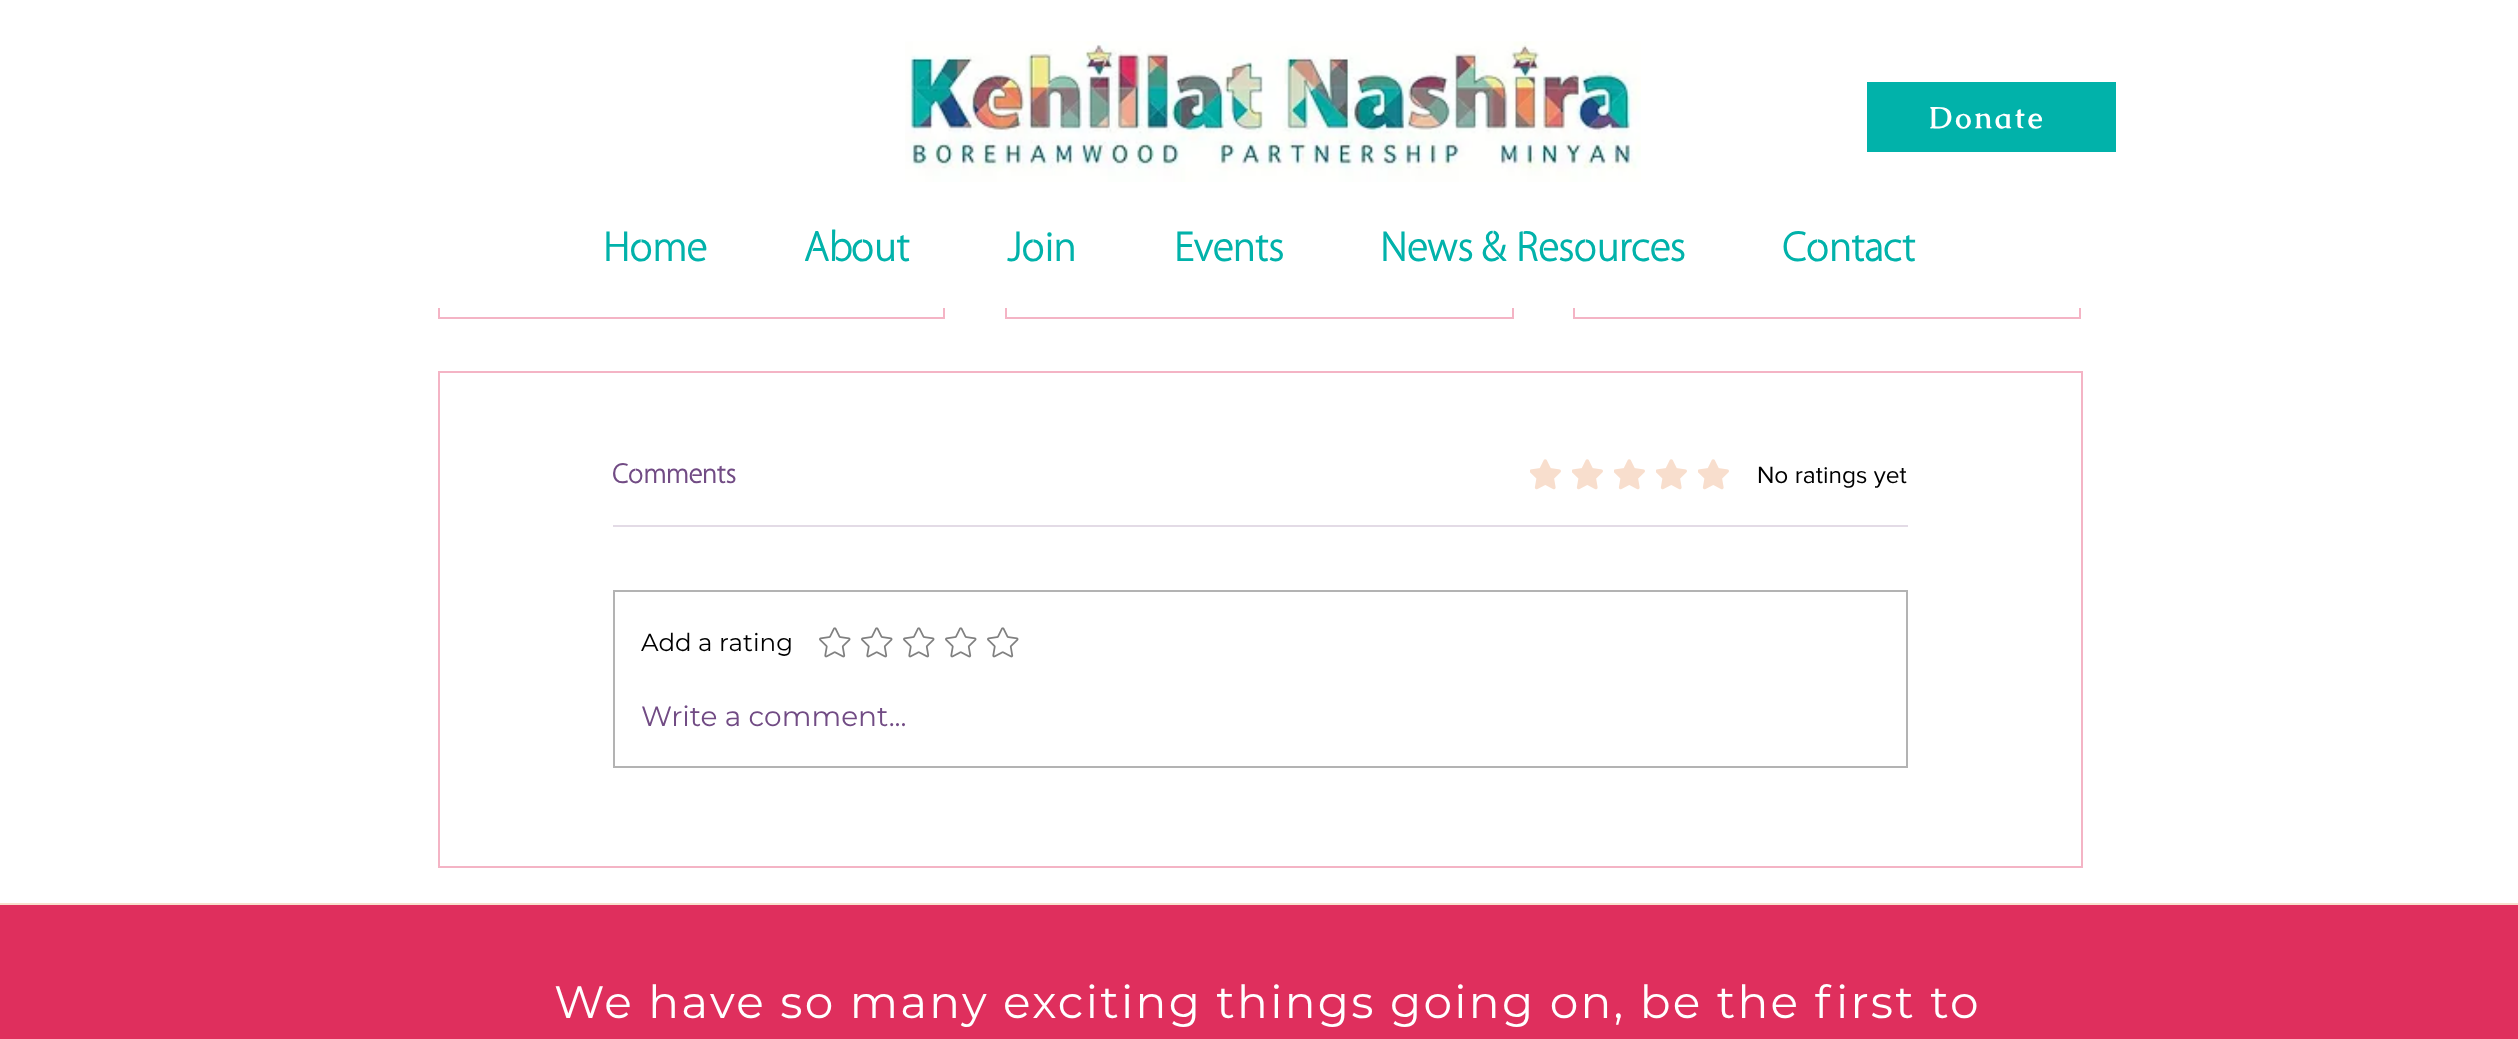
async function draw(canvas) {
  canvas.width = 2518;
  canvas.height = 1039;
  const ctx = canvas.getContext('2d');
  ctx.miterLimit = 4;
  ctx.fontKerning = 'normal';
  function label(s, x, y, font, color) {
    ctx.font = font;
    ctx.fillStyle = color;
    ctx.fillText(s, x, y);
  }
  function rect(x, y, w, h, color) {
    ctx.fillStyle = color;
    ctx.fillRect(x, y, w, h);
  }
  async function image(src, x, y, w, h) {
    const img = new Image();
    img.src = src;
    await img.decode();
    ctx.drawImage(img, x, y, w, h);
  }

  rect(0, 0, 2518, 1039, '#fff');
  ctx.strokeStyle = '#f4b4c5';
  ctx.lineWidth = 2;
  ctx.strokeRect(439, -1, 505, 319);
  ctx.strokeRect(1006, -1, 507, 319);
  ctx.strokeRect(1574, -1, 506, 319);
  rect(438, 0, 1643, 308, '#fff');
  await image('assets/img1.png', 905, 41, 736, 141);
  rect(1867, 82, 249, 70, '#01b2aa');
  ctx.letterSpacing = '3px';
  label('Donate', 1929, 128, 'bold 30px Caudex', '#fff');
  ctx.letterSpacing = '0px';
  label('Home', 603, 261, 'bold 42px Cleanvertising', '#01b2aa');
  label('About', 805, 261, 'bold 42px Cleanvertising', '#01b2aa');
  label('Join', 1007, 261, 'bold 42px Cleanvertising', '#01b2aa');
  label('Events', 1174, 261, 'bold 42px Cleanvertising', '#01b2aa');
  label('News & Resources', 1380, 261, 'bold 42px Cleanvertising', '#01b2aa');
  label('Contact', 1782, 261, 'bold 42px Cleanvertising', '#01b2aa');
  ctx.strokeRect(439, 372, 1643, 495);
  label('Comments', 612, 483, 'bold 28px Cleanvertising', '#714b84');
  await image('assets/img2.png', 1530, 459, 31, 31);
  await image('assets/img2.png', 1572, 459, 31, 31);
  await image('assets/img2.png', 1614, 459, 31, 31);
  await image('assets/img2.png', 1656, 459, 31, 31);
  await image('assets/img2.png', 1698, 459, 31, 31);
  label('No ratings yet', 1757, 483, '24.5px "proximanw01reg"', '#000');
  rect(613, 525, 1295, 2, '#e3dbe6');
  ctx.strokeStyle = '#b3b3b3';
  ctx.strokeRect(614, 591, 1293, 176);
  label('Add a rating', 641, 651, '24.5px Montserrat', '#000');
  await image('assets/img3.png', 819, 627, 32, 31);
  await image('assets/img3.png', 861, 627, 32, 31);
  await image('assets/img3.png', 903, 627, 32, 31);
  await image('assets/img3.png', 945, 627, 32, 31);
  await image('assets/img3.png', 987, 627, 32, 31);
  label('Write a comment...', 641, 726, '28px Montserrat', '#714b84');
  rect(0, 905, 2518, 134, '#df2f5d');
  rect(0, 903, 2518, 2, '#f8decd');
  ctx.letterSpacing = '2.27px';
  label('We have so many exciting things going on, be the first to', 554, 1018, '45.5px Montserrat', '#fff');
}

draw(document.querySelector('canvas'));
